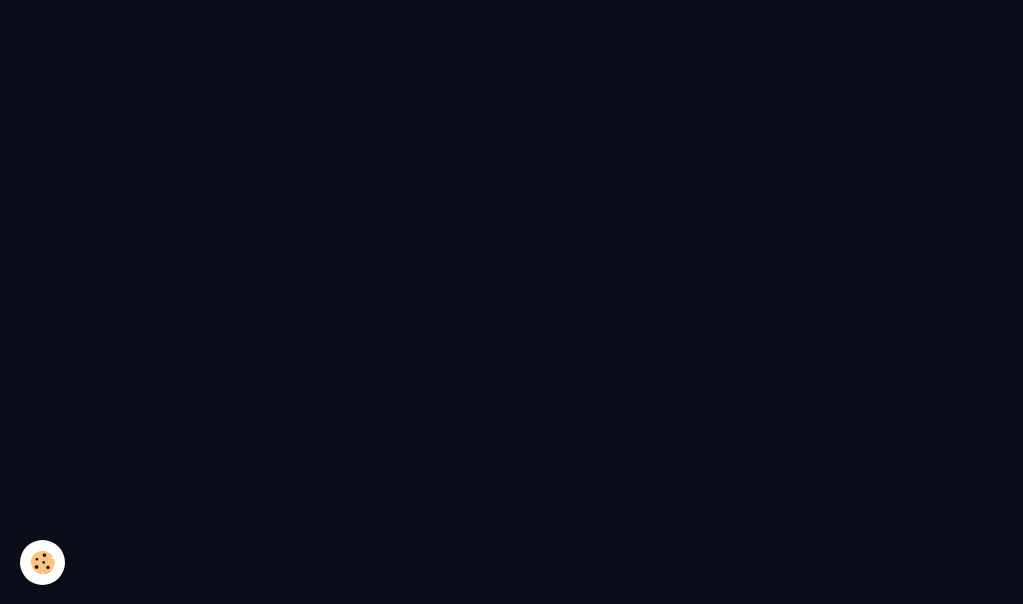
async function draw(canvas) {
  canvas.width = 1023;
  canvas.height = 604;
  const ctx = canvas.getContext('2d');
  ctx.miterLimit = 4;
  ctx.fontKerning = 'normal';
  function rect(x, y, w, h, color) {
    ctx.fillStyle = color;
    ctx.fillRect(x, y, w, h);
  }
  async function image(src, x, y, w, h) {
    const img = new Image();
    img.src = src;
    await img.decode();
    ctx.drawImage(img, x, y, w, h);
  }

  rect(0, 0, 1023, 604, '#0a0e19');
  ctx.fillStyle = '#fff';
  ctx.beginPath();
  ctx.arc(42.5, 562.5, 22.5, 0, 2 * Math.PI);
  ctx.fill();
  await image('assets/img1.png', 30, 550, 25, 25);
}

draw(document.querySelector('canvas'));
